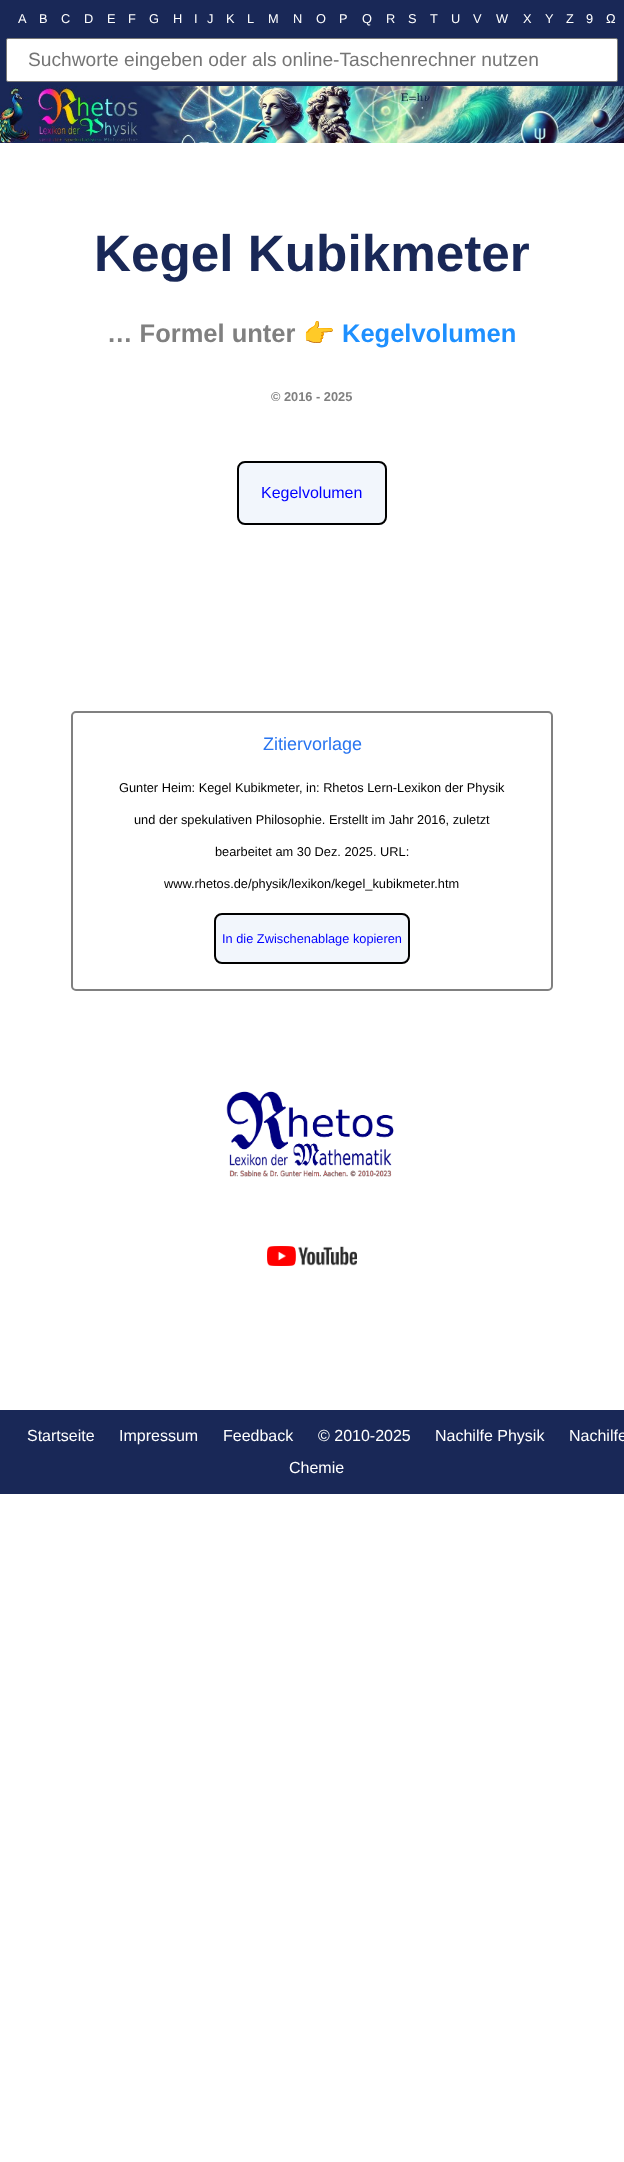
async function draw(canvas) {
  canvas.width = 624;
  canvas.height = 2162;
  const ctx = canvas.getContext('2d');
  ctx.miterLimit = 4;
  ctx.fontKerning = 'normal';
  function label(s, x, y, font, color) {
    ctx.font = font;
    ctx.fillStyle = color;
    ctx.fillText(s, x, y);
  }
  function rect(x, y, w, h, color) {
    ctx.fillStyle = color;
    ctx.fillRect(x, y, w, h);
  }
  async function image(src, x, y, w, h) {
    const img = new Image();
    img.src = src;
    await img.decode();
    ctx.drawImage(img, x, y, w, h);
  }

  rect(0, 0, 624, 2162, '#fff');
  rect(0, 0, 624, 86, '#192857');
  label('A', 18, 23, '12.8px Liberation Sans', '#fff');
  label('B', 39, 23, '12.8px Liberation Sans', '#fff');
  label('C', 61, 23, '12.8px Liberation Sans', '#fff');
  label('D', 84, 23, '12.8px Liberation Sans', '#fff');
  label('E', 107, 23, '12.8px Liberation Sans', '#fff');
  label('F', 128, 23, '12.8px Liberation Sans', '#fff');
  label('G', 149, 23, '12.8px Liberation Sans', '#fff');
  label('H', 173, 23, '12.8px Liberation Sans', '#fff');
  label('I', 194, 23, '12.8px Liberation Sans', '#fff');
  label('J', 207, 23, '12.8px Liberation Sans', '#fff');
  label('K', 226, 23, '12.8px Liberation Sans', '#fff');
  label('L', 247, 23, '12.8px Liberation Sans', '#fff');
  label('M', 268, 23, '12.8px Liberation Sans', '#fff');
  label('N', 293, 23, '12.8px Liberation Sans', '#fff');
  label('O', 316, 23, '12.8px Liberation Sans', '#fff');
  label('P', 339, 23, '12.8px Liberation Sans', '#fff');
  label('Q', 362, 23, '12.8px Liberation Sans', '#fff');
  label('R', 386, 23, '12.8px Liberation Sans', '#fff');
  label('S', 408, 23, '12.8px Liberation Sans', '#fff');
  label('T', 430, 23, '12.8px Liberation Sans', '#fff');
  label('U', 451, 23, '12.8px Liberation Sans', '#fff');
  label('V', 473, 23, '12.8px Liberation Sans', '#fff');
  label('W', 496, 23, '12.8px Liberation Sans', '#fff');
  label('X', 523, 23, '12.8px Liberation Sans', '#fff');
  label('Y', 545, 23, '12.8px Liberation Sans', '#fff');
  label('Z', 566, 23, '12.8px Liberation Sans', '#fff');
  label('9', 586, 23, '12.8px Liberation Sans', '#fff');
  label('Ω', 606, 23, '12.8px Liberation Sans', '#fff');
  ctx.beginPath();
  ctx.roundRect(6.5, 38.5, 611, 43, 1.5);
  ctx.fill();
  ctx.strokeStyle = '#767676';
  ctx.stroke();
  label('Suchworte eingeben oder als online-Taschenrechner nutzen', 28, 66, '19.2px Liberation Sans', '#757575');
  await image('assets/img1.png', 0, 86, 624, 57);
  label('Kegel Kubikmeter', 94, 271, 'bold 51.25px Liberation Sans', '#192857');
  label('… Formel unter', 107, 342, 'bold 25.5px Liberation Sans', '#808080');
  label('👉', 303, 342, 'bold 25.5px Noto Color Emoji', '#1e90ff');
  label('Kegelvolumen', 342, 342, 'bold 25.5px Liberation Sans', '#1e90ff');
  label('© 2016 - 2025', 271, 401, 'bold 12.8px Liberation Sans', '#808080');
  ctx.fillStyle = '#f2f6fc';
  ctx.beginPath();
  ctx.roundRect(238, 462, 148, 62, 7);
  ctx.fill();
  ctx.strokeStyle = '#000';
  ctx.lineWidth = 2;
  ctx.stroke();
  label('Kegelvolumen', 261, 498, '16px Liberation Sans', '#00f');
  ctx.beginPath();
  ctx.roundRect(72, 712, 480, 278, 4);
  ctx.strokeStyle = '#808080';
  ctx.stroke();
  label('Zitiervorlage', 263, 750, '18px Liberation Sans', '#2975f0');
  label('Gunter Heim: Kegel Kubikmeter, in: Rhetos Lern-Lexikon der Physik', 119, 792, '12.8px Liberation Sans', '#000');
  label('und der spekulativen Philosophie. Erstellt im Jahr 2016, zuletzt', 134, 824, '12.8px Liberation Sans', '#000');
  label('bearbeitet am 30 Dez. 2025. URL:', 215, 856, '12.8px Liberation Sans', '#000');
  label('www.rhetos.de/physik/lexikon/kegel_kubikmeter.htm', 164, 888, '12.8px Liberation Sans', '#000');
  ctx.fillStyle = '#f2f6fc';
  ctx.beginPath();
  ctx.roundRect(215, 914, 194, 49, 7);
  ctx.fill();
  ctx.strokeStyle = '#000';
  ctx.stroke();
  label('In die Zwischenablage kopieren', 222, 943, '12.8px Liberation Sans', '#00f');
  await image('assets/img2.png', 226, 1091, 168, 86);
  await image('assets/img3.png', 267, 1246, 90, 20);
  rect(0, 1410, 624, 84, '#192857');
  label('Startseite', 27, 1441, '16px Liberation Sans', '#fff');
  label('Impressum', 119, 1441, '16px Liberation Sans', '#fff');
  label('Feedback', 223, 1441, '16px Liberation Sans', '#fff');
  label('© 2010-2025', 318, 1441, '16px Liberation Sans', '#fff');
  label('Nachilfe Physik', 435, 1441, '16px Liberation Sans', '#fff');
  label('Nachilfe', 569, 1441, '16px Liberation Sans', '#fff');
  label('Chemie', 289, 1473, '16px Liberation Sans', '#fff');
}

draw(document.querySelector('canvas'));
